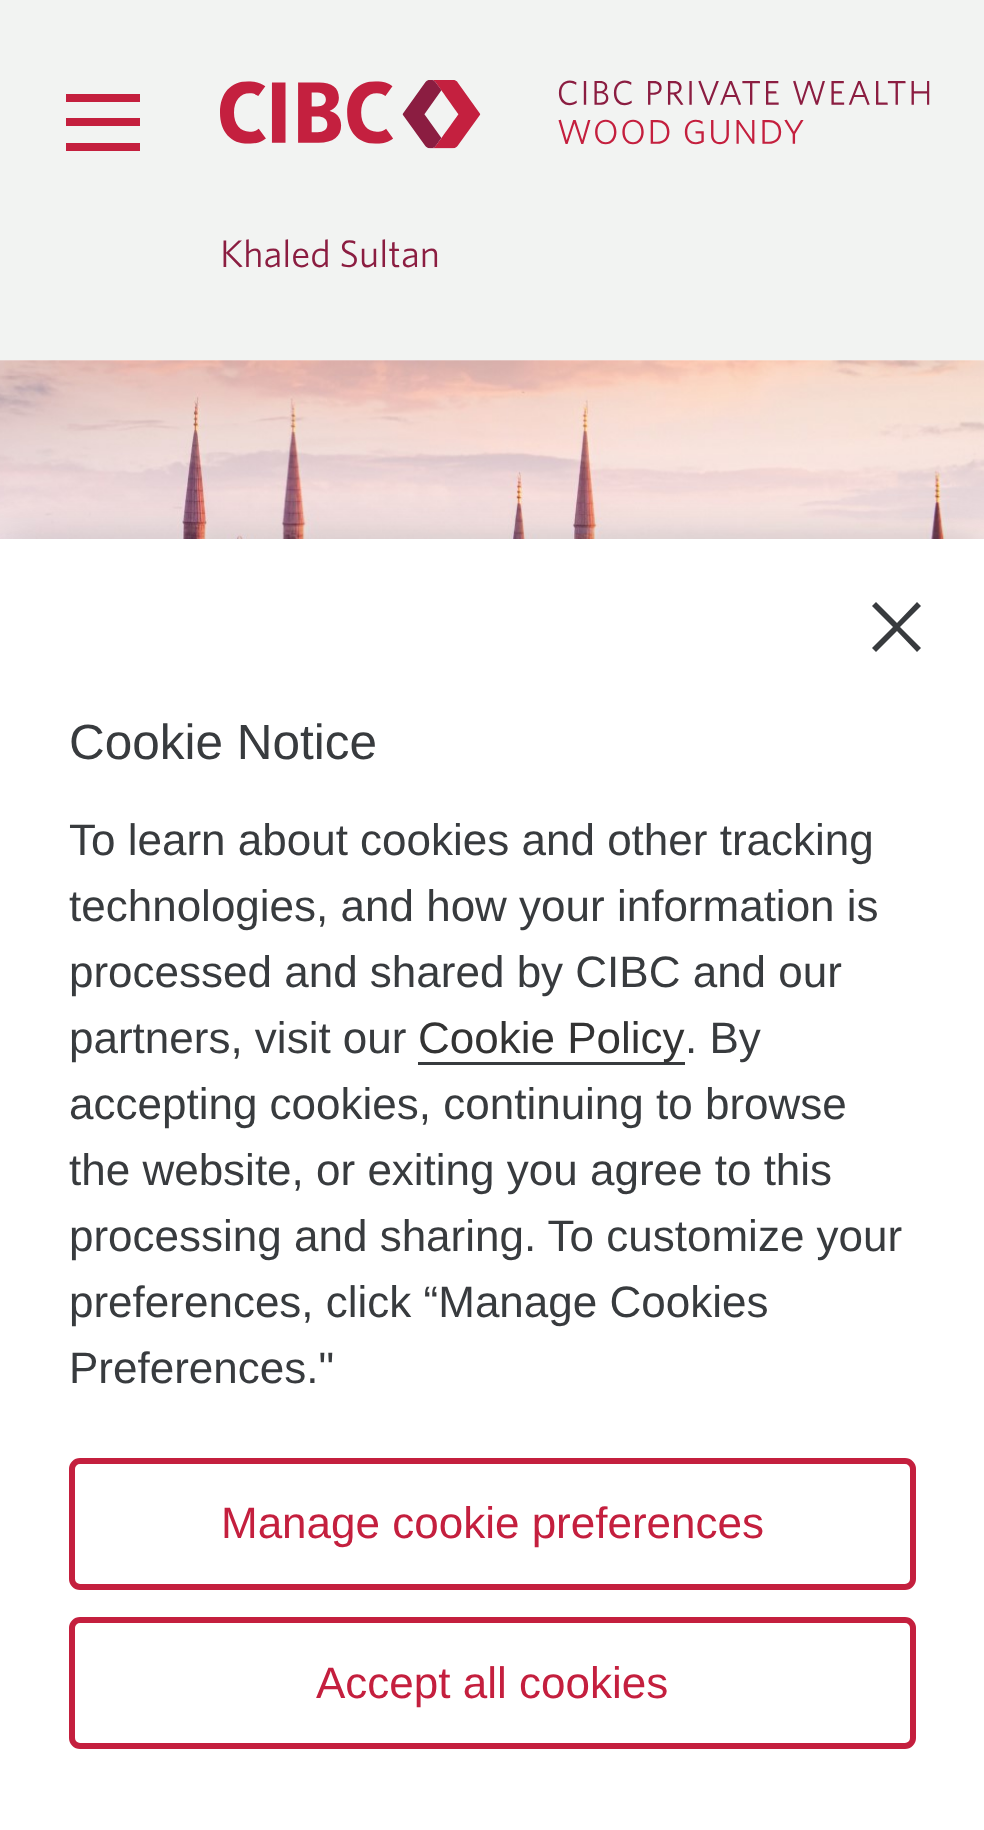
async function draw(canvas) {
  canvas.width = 984;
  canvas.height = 1830;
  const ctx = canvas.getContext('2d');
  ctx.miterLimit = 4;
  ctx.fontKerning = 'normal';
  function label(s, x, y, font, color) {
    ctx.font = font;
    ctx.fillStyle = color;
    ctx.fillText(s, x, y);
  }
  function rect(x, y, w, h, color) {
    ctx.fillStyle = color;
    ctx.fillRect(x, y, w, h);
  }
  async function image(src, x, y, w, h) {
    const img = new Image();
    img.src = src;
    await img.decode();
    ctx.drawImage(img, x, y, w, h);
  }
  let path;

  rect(0, 0, 984, 1830, '#fff');
  rect(0, 0, 984, 360, '#f2f3f2');
  rect(66, 94, 74, 8, '#c41f3e');
  rect(66, 118, 74, 8, '#c41f3e');
  rect(66, 143, 74, 8, '#c41f3e');
  await image('assets/img1.png', 220, 80, 710, 69);
  label('Khaled Sultan', 220, 267, '300 38.5px "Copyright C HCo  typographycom"', '#8b1d41');
  await image('assets/img2.png', 0, 360, 984, 179);
  ctx.fillStyle = '#00000033';
  ctx.filter = 'blur(25px)';
  ctx.beginPath();
  ctx.rect(0, 539, 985, 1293);
  ctx.fill();
  ctx.filter = 'none';
  rect(0, 539, 984, 1291, '#fff');
  ctx.fillStyle = '#383b3e';
  path = new Path2D('M872 648L893 627L872 606L876 602L897 623L917 602L921 606L900 627L921 648L917 652L897 631L876 652Z');
  ctx.fill(path);
  label('Cookie Notice', 69, 759, '49.5px Liberation Sans', '#383b3e');
  label('To learn about cookies and other tracking', 69, 855, '44px Liberation Sans', '#383b3e');
  label('technologies, and how your information is', 69, 921, '44px Liberation Sans', '#383b3e');
  label('processed and shared by CIBC and our', 69, 987, '44px Liberation Sans', '#383b3e');
  label('partners, visit our', 69, 1053, '44px Liberation Sans', '#383b3e');
  rect(418, 1062, 267, 3, '#383b3e');
  label('Cookie Policy', 418, 1053, '44px Liberation Sans', '#333');
  label('. By', 685, 1053, '44px Liberation Sans', '#383b3e');
  label('accepting cookies, continuing to browse', 69, 1119, '44px Liberation Sans', '#383b3e');
  label('the website, or exiting you agree to this', 69, 1185, '44px Liberation Sans', '#383b3e');
  label('processing and sharing. To customize your', 69, 1251, '44px Liberation Sans', '#383b3e');
  label('preferences, click “Manage Cookies', 69, 1317, '44px Liberation Sans', '#383b3e');
  label('Preferences."', 69, 1383, '44px Liberation Sans', '#383b3e');
  ctx.beginPath();
  ctx.roundRect(72, 1461, 841, 126, 8);
  ctx.strokeStyle = '#c41f3e';
  ctx.lineWidth = 6;
  ctx.stroke();
  label('Manage cookie preferences', 221, 1538, '44px Liberation Sans', '#c41f3e');
  ctx.beginPath();
  ctx.roundRect(72, 1620, 841, 126, 8);
  ctx.stroke();
  label('Accept all cookies', 316, 1698, '44px Liberation Sans', '#c41f3e');
}

draw(document.querySelector('canvas'));
